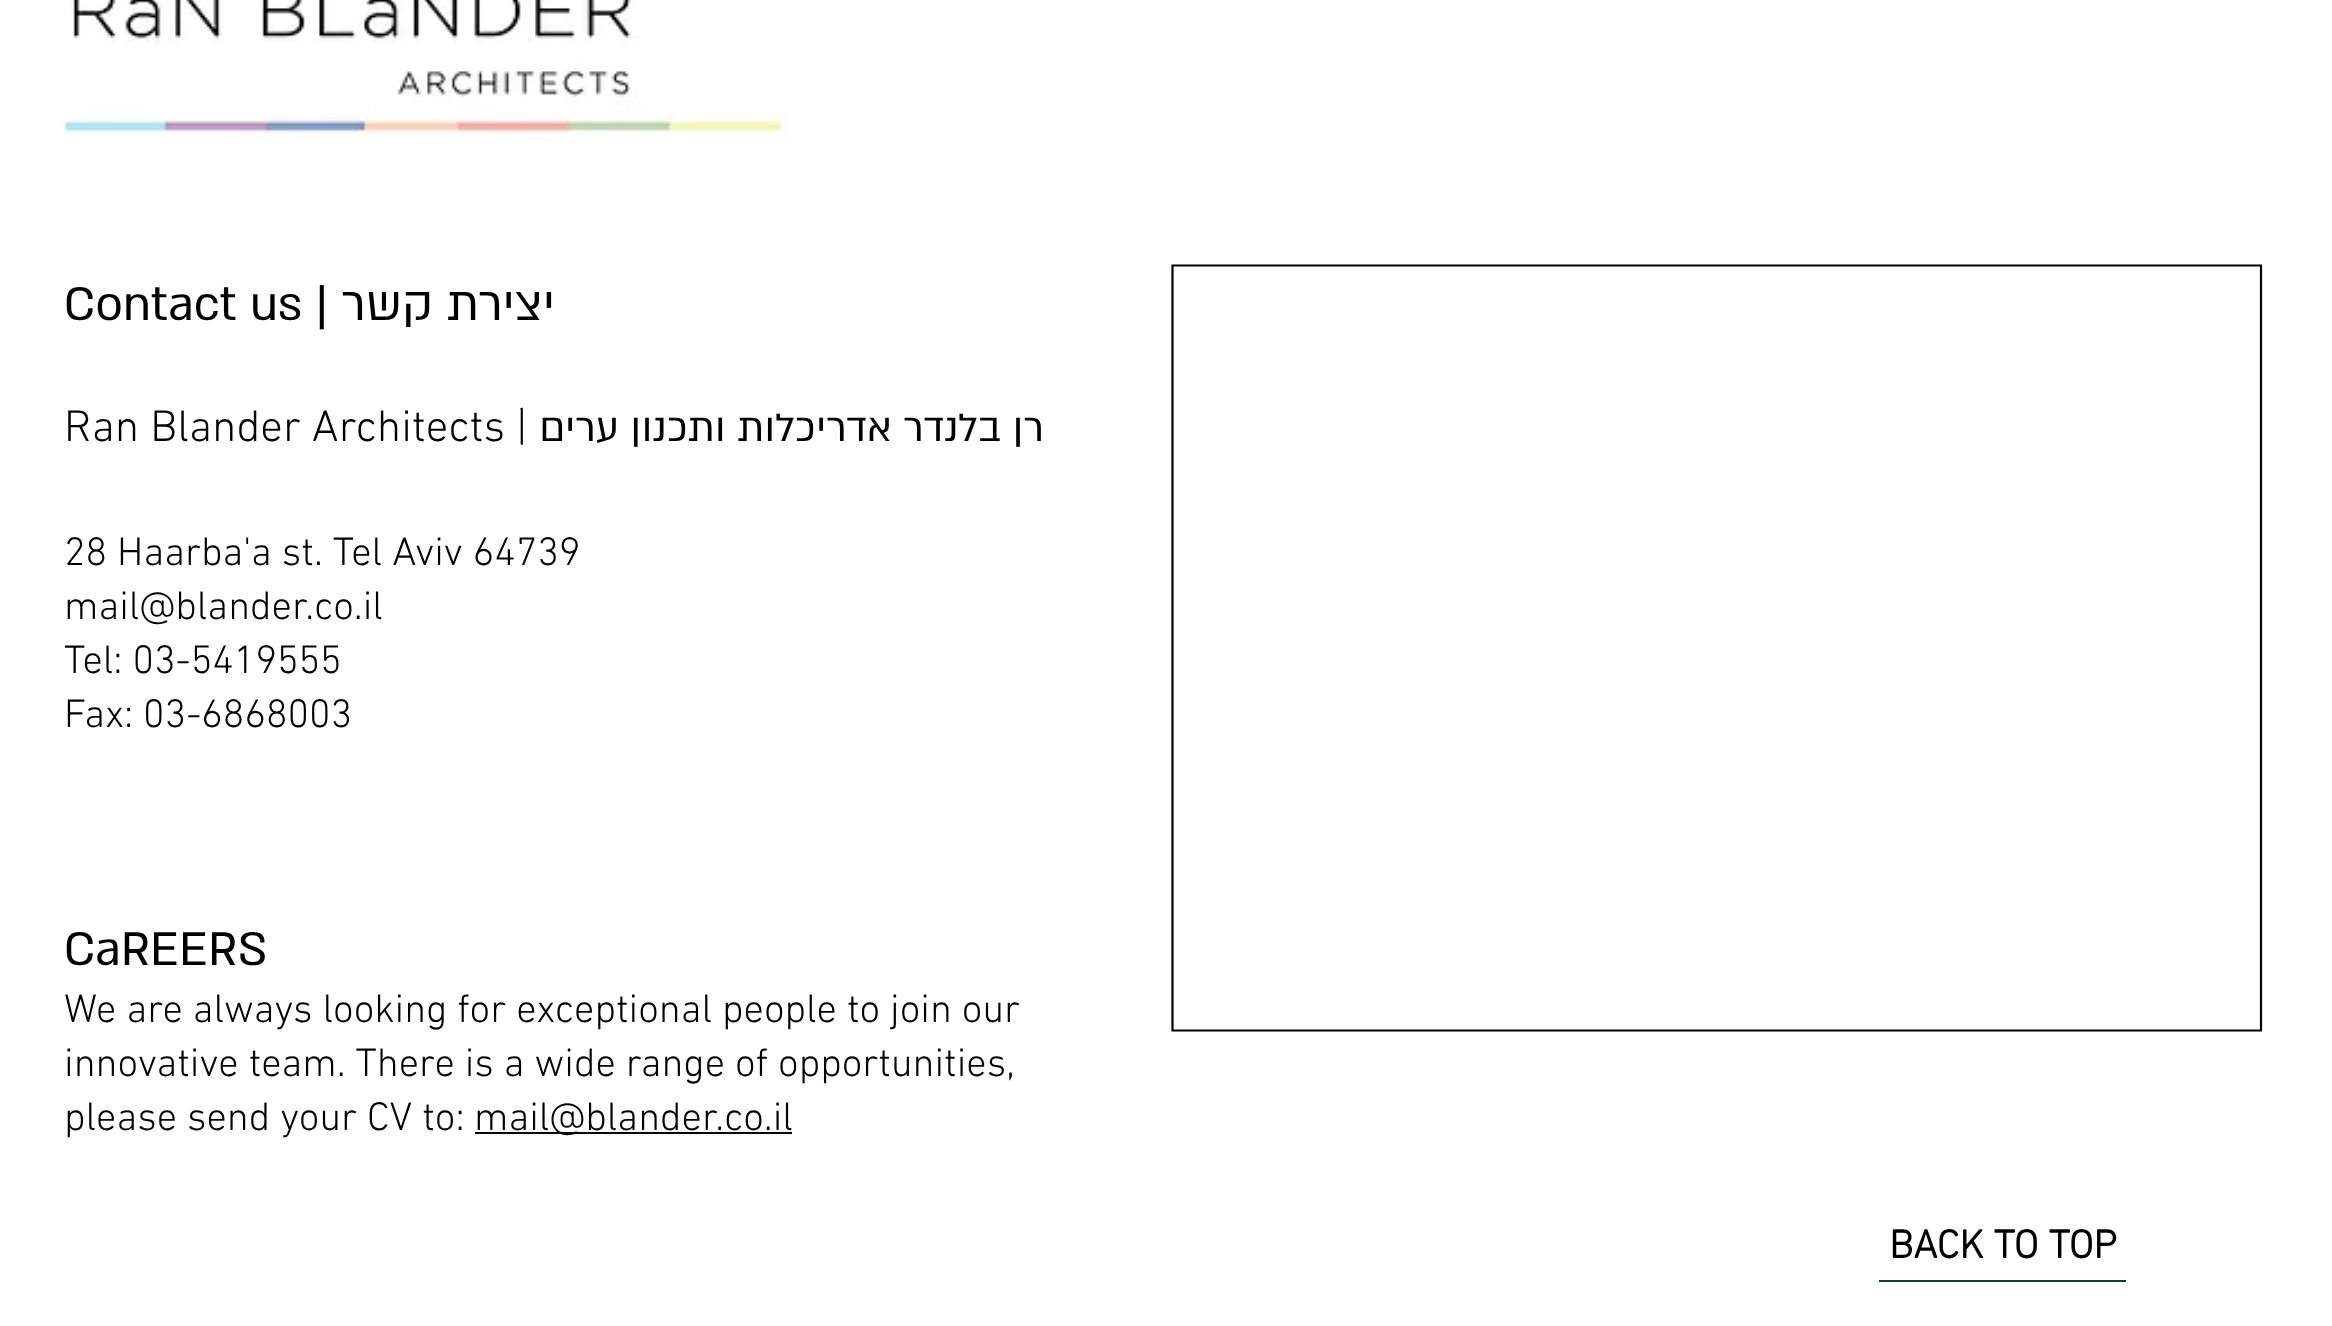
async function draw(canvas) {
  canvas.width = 2332;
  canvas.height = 1326;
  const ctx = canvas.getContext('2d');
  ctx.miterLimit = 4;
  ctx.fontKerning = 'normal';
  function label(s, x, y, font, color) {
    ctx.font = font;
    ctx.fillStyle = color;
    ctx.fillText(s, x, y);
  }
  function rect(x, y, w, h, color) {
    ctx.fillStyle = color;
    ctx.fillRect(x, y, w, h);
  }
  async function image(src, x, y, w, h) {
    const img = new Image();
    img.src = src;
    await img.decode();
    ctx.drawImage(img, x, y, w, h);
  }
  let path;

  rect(0, 0, 2332, 1326, '#fff');
  await image('assets/img1.png', 63, 0, 725, 141);
  label('Contact us |', 64, 320, '54px "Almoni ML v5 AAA"', '#000');
  ctx.direction = 'rtl';
  label('יצירת קשר', 555, 320, '54px "Almoni ML v5 AAA"', '#000');
  ctx.direction = 'ltr';
  label('Ran Blander Architects |', 64, 441, '300 45px "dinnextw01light"', '#000');
  ctx.direction = 'rtl';
  label('רן בלנדר אדריכלות ותכנון ערים', 1044, 441, '45px "Almoni ML v5 AAA"', '#000');
  ctx.direction = 'ltr';
  label('28 Haarba\'a st. Tel Aviv 64739', 64, 565, '300 40.5px "dinnextw01light"', '#000');
  label('mail@blander.co.il', 64, 619, '300 40.5px "dinnextw01light"', '#000');
  label('Tel: 03-5419555', 64, 673, '300 40.5px "dinnextw01light"', '#000');
  label('Fax: 03-6868003', 64, 727, '300 40.5px "dinnextw01light"', '#000');
  path = new Path2D('M2261 265.5V1030.5H1172.5V265.5Z');
  ctx.strokeStyle = '#000';
  ctx.lineWidth = 2.2;
  ctx.stroke(path);
  label('CaREERS', 64, 965, '54px "Almoni ML v5 AAA"', '#000');
  label('We are always looking for exceptional people to join our', 64, 1022, '300 40.5px "dinnextw01light"', '#000');
  label('innovative team. There is a wide range of opportunities,', 64, 1076, '300 40.5px "dinnextw01light"', '#000');
  label('please send your CV to:', 64, 1130, '300 40.5px "dinnextw01light"', '#000');
  rect(475, 1132, 317, 2, '#000');
  label('mail@blander.co.il', 474, 1130, '300 40.5px "dinnextw01light"', '#000');
  rect(1879, 1280, 247, 2, '#0c4426');
  label('BACK TO TOP', 1889, 1258, 'bold 40.5px "dinnextw01light"', '#000');
}

draw(document.querySelector('canvas'));
